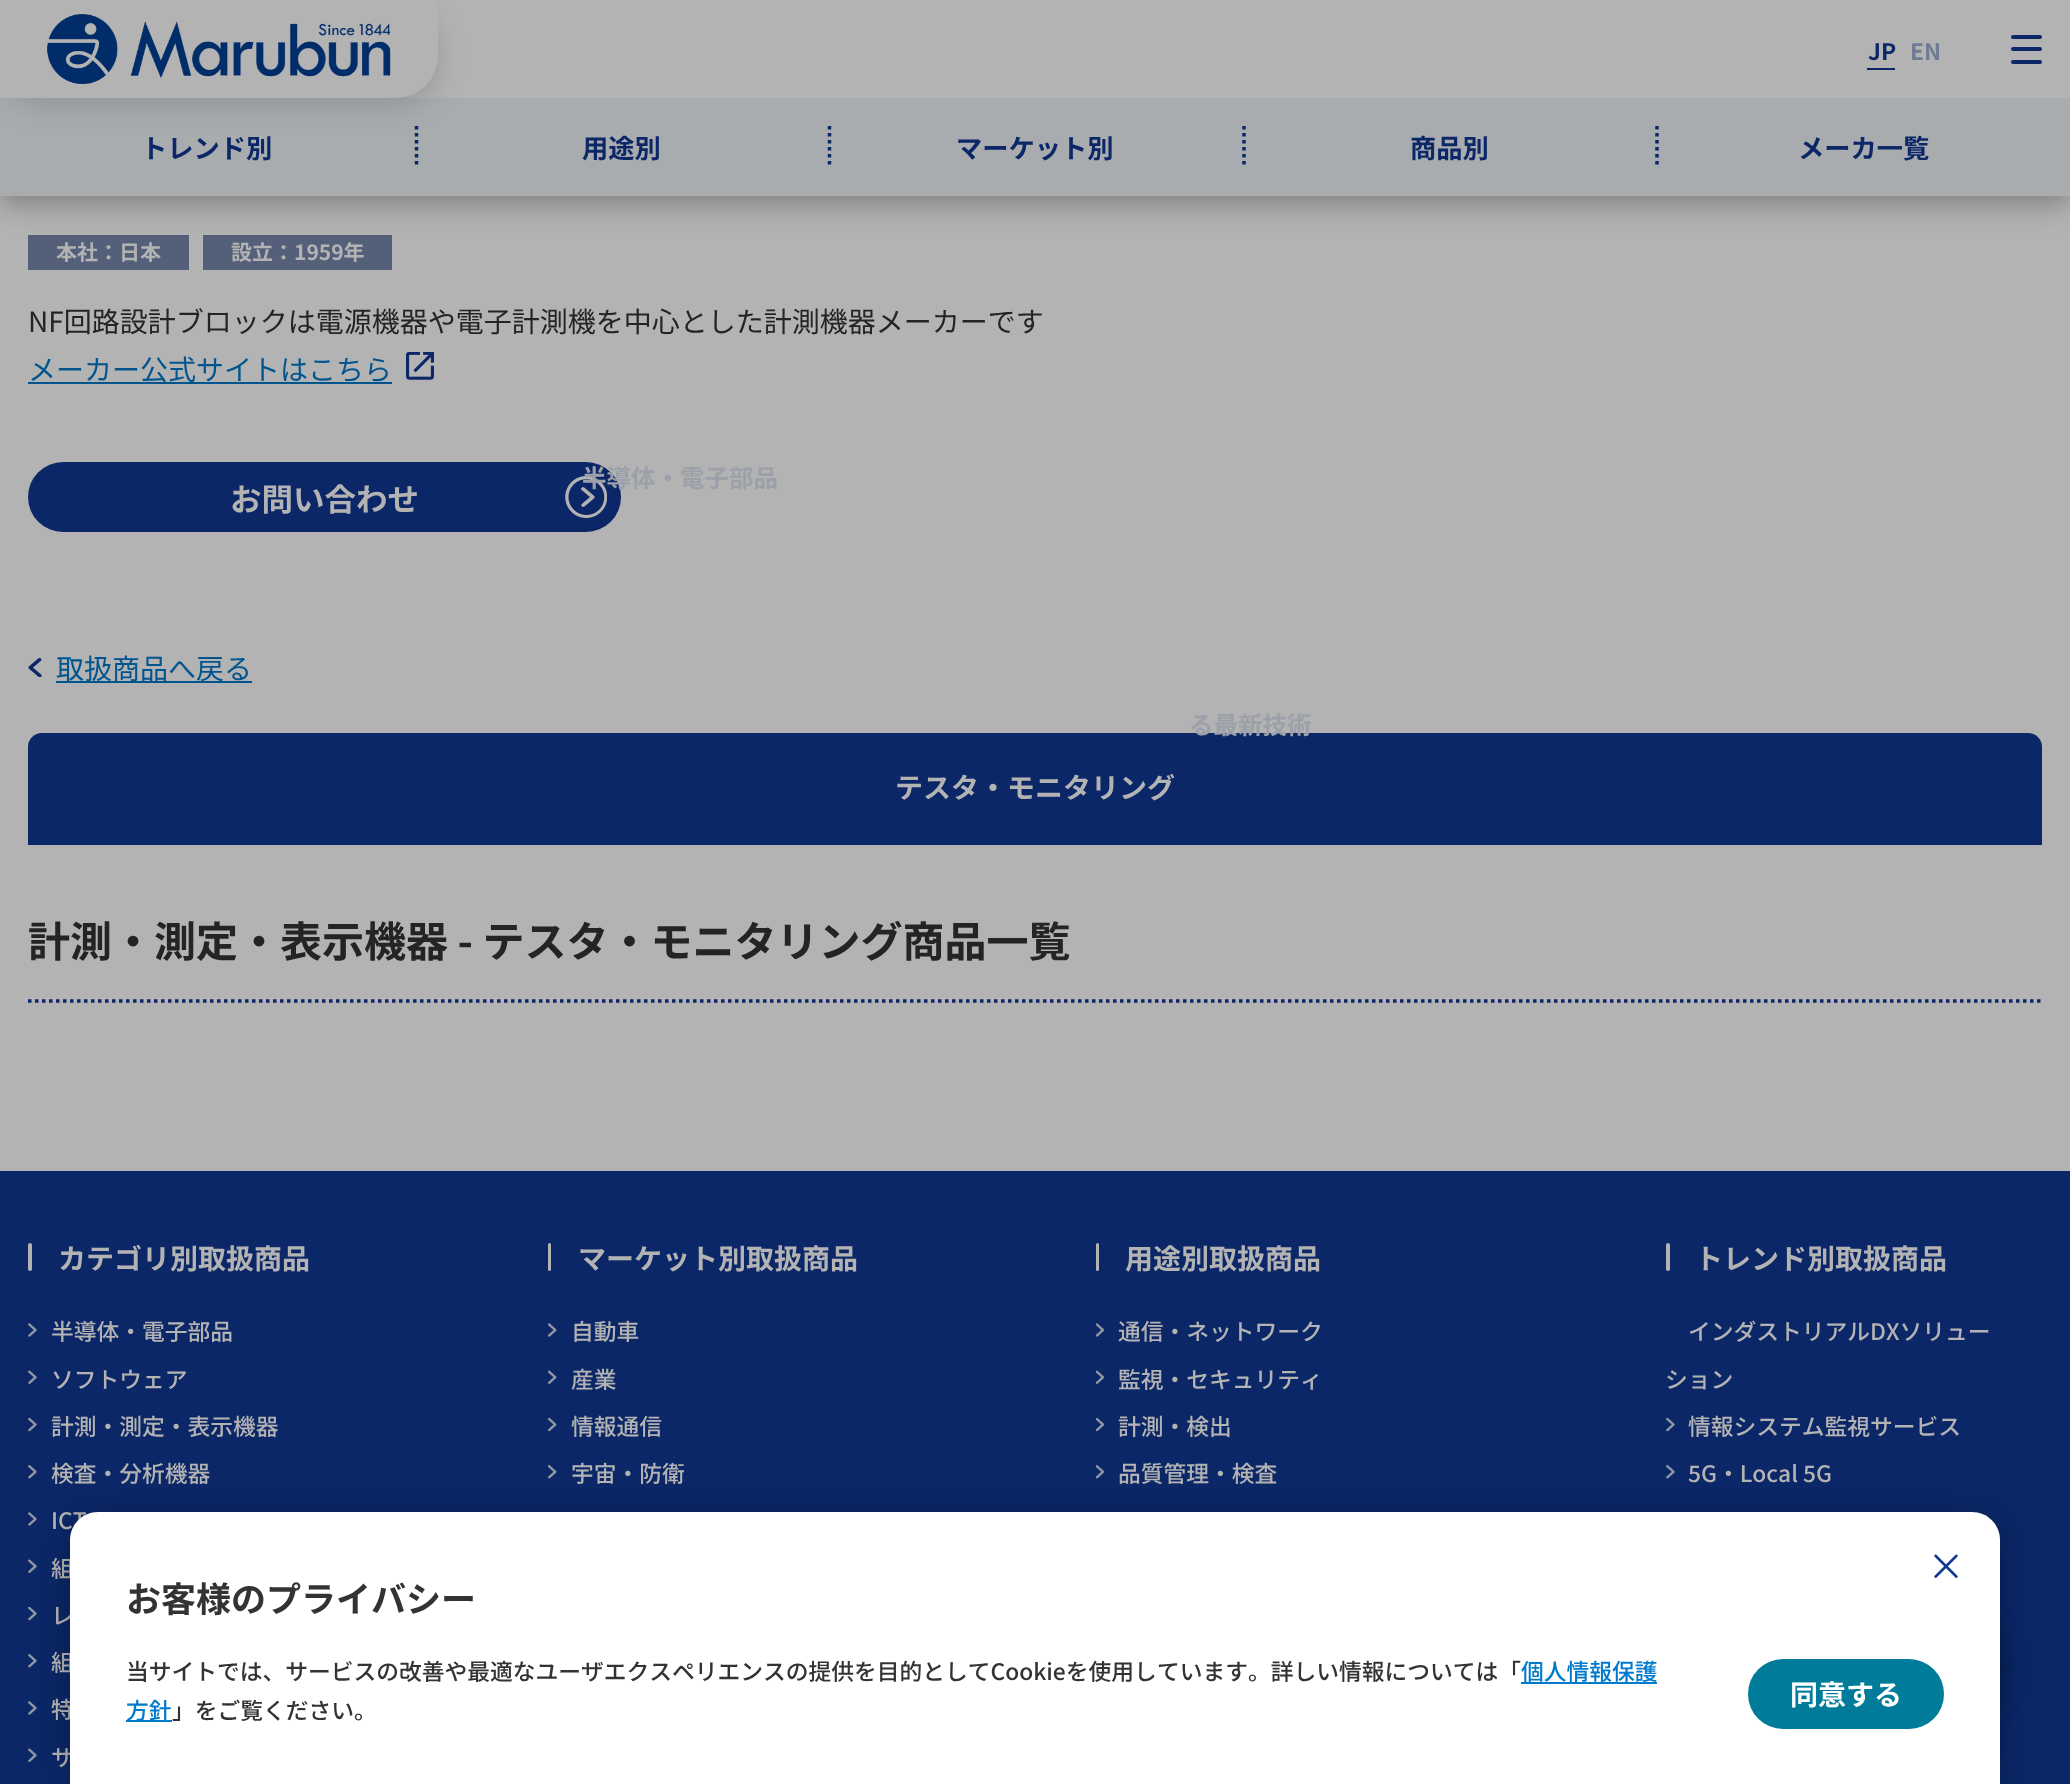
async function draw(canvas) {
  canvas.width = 2070;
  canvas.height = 1784;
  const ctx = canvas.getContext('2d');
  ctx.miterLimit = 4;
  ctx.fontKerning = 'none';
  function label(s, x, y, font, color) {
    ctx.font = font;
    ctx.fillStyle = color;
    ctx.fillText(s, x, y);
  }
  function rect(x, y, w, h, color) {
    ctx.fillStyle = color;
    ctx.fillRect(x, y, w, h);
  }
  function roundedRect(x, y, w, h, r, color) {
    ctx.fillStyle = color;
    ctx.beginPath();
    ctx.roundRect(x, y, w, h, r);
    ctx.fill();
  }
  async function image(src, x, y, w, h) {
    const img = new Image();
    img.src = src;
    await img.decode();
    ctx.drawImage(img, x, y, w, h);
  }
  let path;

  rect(0, 0, 2070, 1784, '#b3b3b3');
  rect(28, 235, 161, 35, '#54607a');
  rect(203, 235, 189, 35, '#54607a');
  ctx.fillStyle = '#0000004d';
  ctx.filter = 'blur(14px)';
  ctx.beginPath();
  ctx.rect(0, 7, 2070, 196);
  ctx.fill();
  ctx.filter = 'none';
  rect(396, 0, 1674, 98, '#b3b3b3');
  rect(0, 98, 2070, 98, '#a9acaf');
  path = new Path2D('M416.5 126V168');
  ctx.strokeStyle = '#0b2767';
  ctx.lineWidth = 3.5;
  ctx.setLineDash([3.5, 3.5]);
  ctx.stroke(path);
  ctx.fillStyle = '#2d2d2d33';
  ctx.filter = 'blur(14px)';
  ctx.beginPath();
  ctx.roundRect(0, 7, 438, 98, 42);
  ctx.fill();
  ctx.filter = 'none';
  ctx.fillStyle = '#b3b3b3';
  ctx.beginPath();
  ctx.roundRect(0, 0, 438, 98, [0, 0, 42, 0]);
  ctx.fill();
  await image('assets/img1.png', 47, 14, 344, 70);
  label('JP', 1868, 60, 'bold 22.75px Noto Sans JP', '#0b2767');
  rect(1867, 68, 28, 2, '#0b2767');
  label('EN', 1910, 60, 'bold 22.75px Noto Sans JP', '#6f7a94');
  roundedRect(2011, 35, 31, 4, 2, '#0b2767');
  roundedRect(2011, 47, 31, 4, 2, '#0b2767');
  roundedRect(2011, 60, 31, 4, 2, '#0b2767');
  label('トレンド別', 141, 158, 'bold 26.25px Noto Sans JP', '#0b2767');
  label('用途別', 582, 158, 'bold 26.25px Noto Sans JP', '#0b2767');
  path = new Path2D('M829.5 126V168');
  ctx.stroke(path);
  label('マーケット別', 956, 158, 'bold 26.25px Noto Sans JP', '#0b2767');
  path = new Path2D('M1244 126V168');
  ctx.stroke(path);
  label('商品別', 1410, 158, 'bold 26.25px Noto Sans JP', '#0b2767');
  path = new Path2D('M1657 126V168');
  ctx.stroke(path);
  label('メーカ一覧', 1798, 158, 'bold 26.25px Noto Sans JP', '#0b2767');
  roundedRect(28, 462, 593, 70, 35, '#0b2767');
  await image('assets/img3.png', 565, 476, 42, 42);
  label('半導体・電子部品', 582, 487, 'bold 24.5px Noto Sans JP', '#9ca0a9');
  ctx.fillStyle = '#0b2767';
  ctx.beginPath();
  ctx.roundRect(28, 733, 2014, 105, [14, 14, 0, 0]);
  ctx.fill();
  label('る最新技術', 1189, 734, 'bold 24.5px Noto Sans JP', '#9ca0a9');
  label('本社：日本', 56, 260, 'bold 21px Noto Sans JP', '#b3b3b3');
  label('設立：1959年', 231, 260, 'bold 21px Noto Sans JP', '#b3b3b3');
  label('NF回路設計ブロックは電源機器や電子計測機を中心とした計測機器メーカーです', 28, 332, '28px Noto Sans JP', '#242424');
  rect(28, 382, 364, 2, '#00558f');
  label('メーカー公式サイトはこちら', 28, 380, '28px Noto Sans JP', '#00558f');
  await image('assets/img2.png', 406, 352, 28, 28);
  label('お問い合わせ', 230, 511, 'bold 31.5px Noto Sans JP', '#b3b3b3');
  await image('assets/img4.png', 28, 658, 14, 19);
  rect(56, 681, 196, 2, '#00558f');
  label('取扱商品へ戻る', 56, 679, '28px Noto Sans JP', '#00558f');
  rect(28, 838, 2014, 7, '#0b2767');
  label('テスタ・モニタリング', 895, 798, 'bold 28px Noto Sans JP', '#b3b3b3');
  path = new Path2D('M28 1001H2042');
  ctx.stroke(path);
  label('計測・測定・表示機器 - テスタ・モニタリング商品一覧', 28, 957, 'bold 42px Noto Sans JP', '#242424');
  rect(0, 1171, 2070, 613, '#0b2767');
  label('カテゴリ別取扱商品', 58, 1269, 'bold 28px Noto Sans JP', '#b3b3b3');
  roundedRect(28, 1243, 4, 28, 2, '#b3b3b3');
  await image('assets/img5.png', 28, 1323, 9, 14);
  label('半導体・電子部品', 51, 1340, '500 22.75px Noto Sans JP', '#b3b3b3');
  await image('assets/img6.png', 28, 1370, 9, 14);
  label('ソフトウェア', 51, 1388, '500 22.75px Noto Sans JP', '#b3b3b3');
  await image('assets/img7.png', 28, 1418, 9, 14);
  label('計測・測定・表示機器', 51, 1435, '500 22.75px Noto Sans JP', '#b3b3b3');
  await image('assets/img8.png', 28, 1465, 9, 14);
  label('検査・分析機器', 51, 1482, '500 22.75px Noto Sans JP', '#b3b3b3');
  await image('assets/img5.png', 28, 1512, 9, 14);
  label('ICT', 51, 1529, '500 22.75px Noto Sans JP', '#b3b3b3');
  await image('assets/img6.png', 28, 1559, 9, 14);
  label('組', 51, 1577, '500 22.75px Noto Sans JP', '#b3b3b3');
  await image('assets/img7.png', 28, 1607, 9, 14);
  label('レ', 51, 1624, '500 22.75px Noto Sans JP', '#b3b3b3');
  await image('assets/img8.png', 28, 1654, 9, 14);
  label('組', 51, 1671, '500 22.75px Noto Sans JP', '#b3b3b3');
  await image('assets/img5.png', 28, 1701, 9, 14);
  label('特', 51, 1718, '500 22.75px Noto Sans JP', '#b3b3b3');
  await image('assets/img6.png', 28, 1748, 9, 14);
  label('サ', 51, 1766, '500 22.75px Noto Sans JP', '#b3b3b3');
  label('マーケット別取扱商品', 578, 1269, 'bold 28px Noto Sans JP', '#b3b3b3');
  roundedRect(548, 1243, 3, 28, 1.5, '#b3b3b3');
  await image('assets/img9.png', 548, 1323, 9, 14);
  label('自動車', 571, 1340, '500 22.75px Noto Sans JP', '#b3b3b3');
  await image('assets/img10.png', 548, 1370, 9, 14);
  label('産業', 571, 1388, '500 22.75px Noto Sans JP', '#b3b3b3');
  await image('assets/img11.png', 548, 1418, 9, 14);
  label('情報通信', 571, 1435, '500 22.75px Noto Sans JP', '#b3b3b3');
  await image('assets/img12.png', 548, 1465, 9, 14);
  label('宇宙・防衛', 571, 1482, '500 22.75px Noto Sans JP', '#b3b3b3');
  label('用途別取扱商品', 1125, 1269, 'bold 28px Noto Sans JP', '#b3b3b3');
  roundedRect(1096, 1243, 3, 28, 1.5, '#b3b3b3');
  await image('assets/img13.png', 1096, 1323, 8, 14);
  label('通信・ネットワーク', 1118, 1340, '500 22.75px Noto Sans JP', '#b3b3b3');
  await image('assets/img14.png', 1096, 1370, 8, 14);
  label('監視・セキュリティ', 1118, 1388, '500 22.75px Noto Sans JP', '#b3b3b3');
  await image('assets/img15.png', 1096, 1418, 8, 14);
  label('計測・検出', 1118, 1435, '500 22.75px Noto Sans JP', '#b3b3b3');
  await image('assets/img16.png', 1096, 1465, 8, 14);
  label('品質管理・検査', 1118, 1482, '500 22.75px Noto Sans JP', '#b3b3b3');
  label('トレンド別取扱商品', 1695, 1269, 'bold 28px Noto Sans JP', '#b3b3b3');
  roundedRect(1666, 1243, 4, 28, 2, '#b3b3b3');
  label('インダストリアルDXソリュー', 1688, 1340, '500 22.75px Noto Sans JP', '#b3b3b3');
  label('ション', 1665, 1388, '500 22.75px Noto Sans JP', '#b3b3b3');
  await image('assets/img7.png', 1666, 1418, 9, 14);
  label('情報システム監視サービス', 1688, 1435, '500 22.75px Noto Sans JP', '#b3b3b3');
  await image('assets/img8.png', 1666, 1465, 9, 14);
  label('5G・Local 5G', 1688, 1482, '500 22.75px Noto Sans JP', '#b3b3b3');
  ctx.fillStyle = '#0000004d';
  ctx.filter = 'blur(14px)';
  ctx.beginPath();
  ctx.roundRect(1888, 1610, 112, 112, 56);
  ctx.fill();
  ctx.filter = 'none';
  ctx.filter = 'blur(14px)';
  ctx.beginPath();
  ctx.roundRect(70, 1519, 1930, 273, 28);
  ctx.fill();
  ctx.filter = 'none';
  ctx.fillStyle = '#fff';
  path = new Path2D('M98 1512H1972C1987.5 1512 2000 1524.5 2000 1540V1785H70V1540C70 1524.5 82.5 1512 98 1512Z');
  ctx.fill(path);
  await image('assets/img17.png', 1934, 1554, 24, 24);
  label('お客様のプライバシー', 126, 1612, 'bold 35px Noto Sans JP', '#333');
  label('当サイトでは、サービスの改善や最適なユーザエクスペリエンスの提供を目的としてCookieを使用し', 126, 1680, '500 22.75px Noto Sans JP', '#333');
  label('ています。詳しい情報については「', 1157, 1680, '500 22.75px Noto Sans JP', '#333');
  label('個人情報保護', 1521, 1680, '500 22.75px Noto Sans JP', '#007acc');
  rect(1521, 1682, 136, 2, '#007acc');
  rect(126, 1720, 46, 2, '#007acc');
  label('方針', 126, 1719, '500 22.75px Noto Sans JP', '#007acc');
  label('」をご覧ください。', 172, 1719, '500 22.75px Noto Sans JP', '#333');
  roundedRect(1748, 1659, 196, 70, 35, '#007c9a');
  label('同意する', 1790, 1705, 'bold 28px Noto Sans JP', '#fff');
}

draw(document.querySelector('canvas'));
